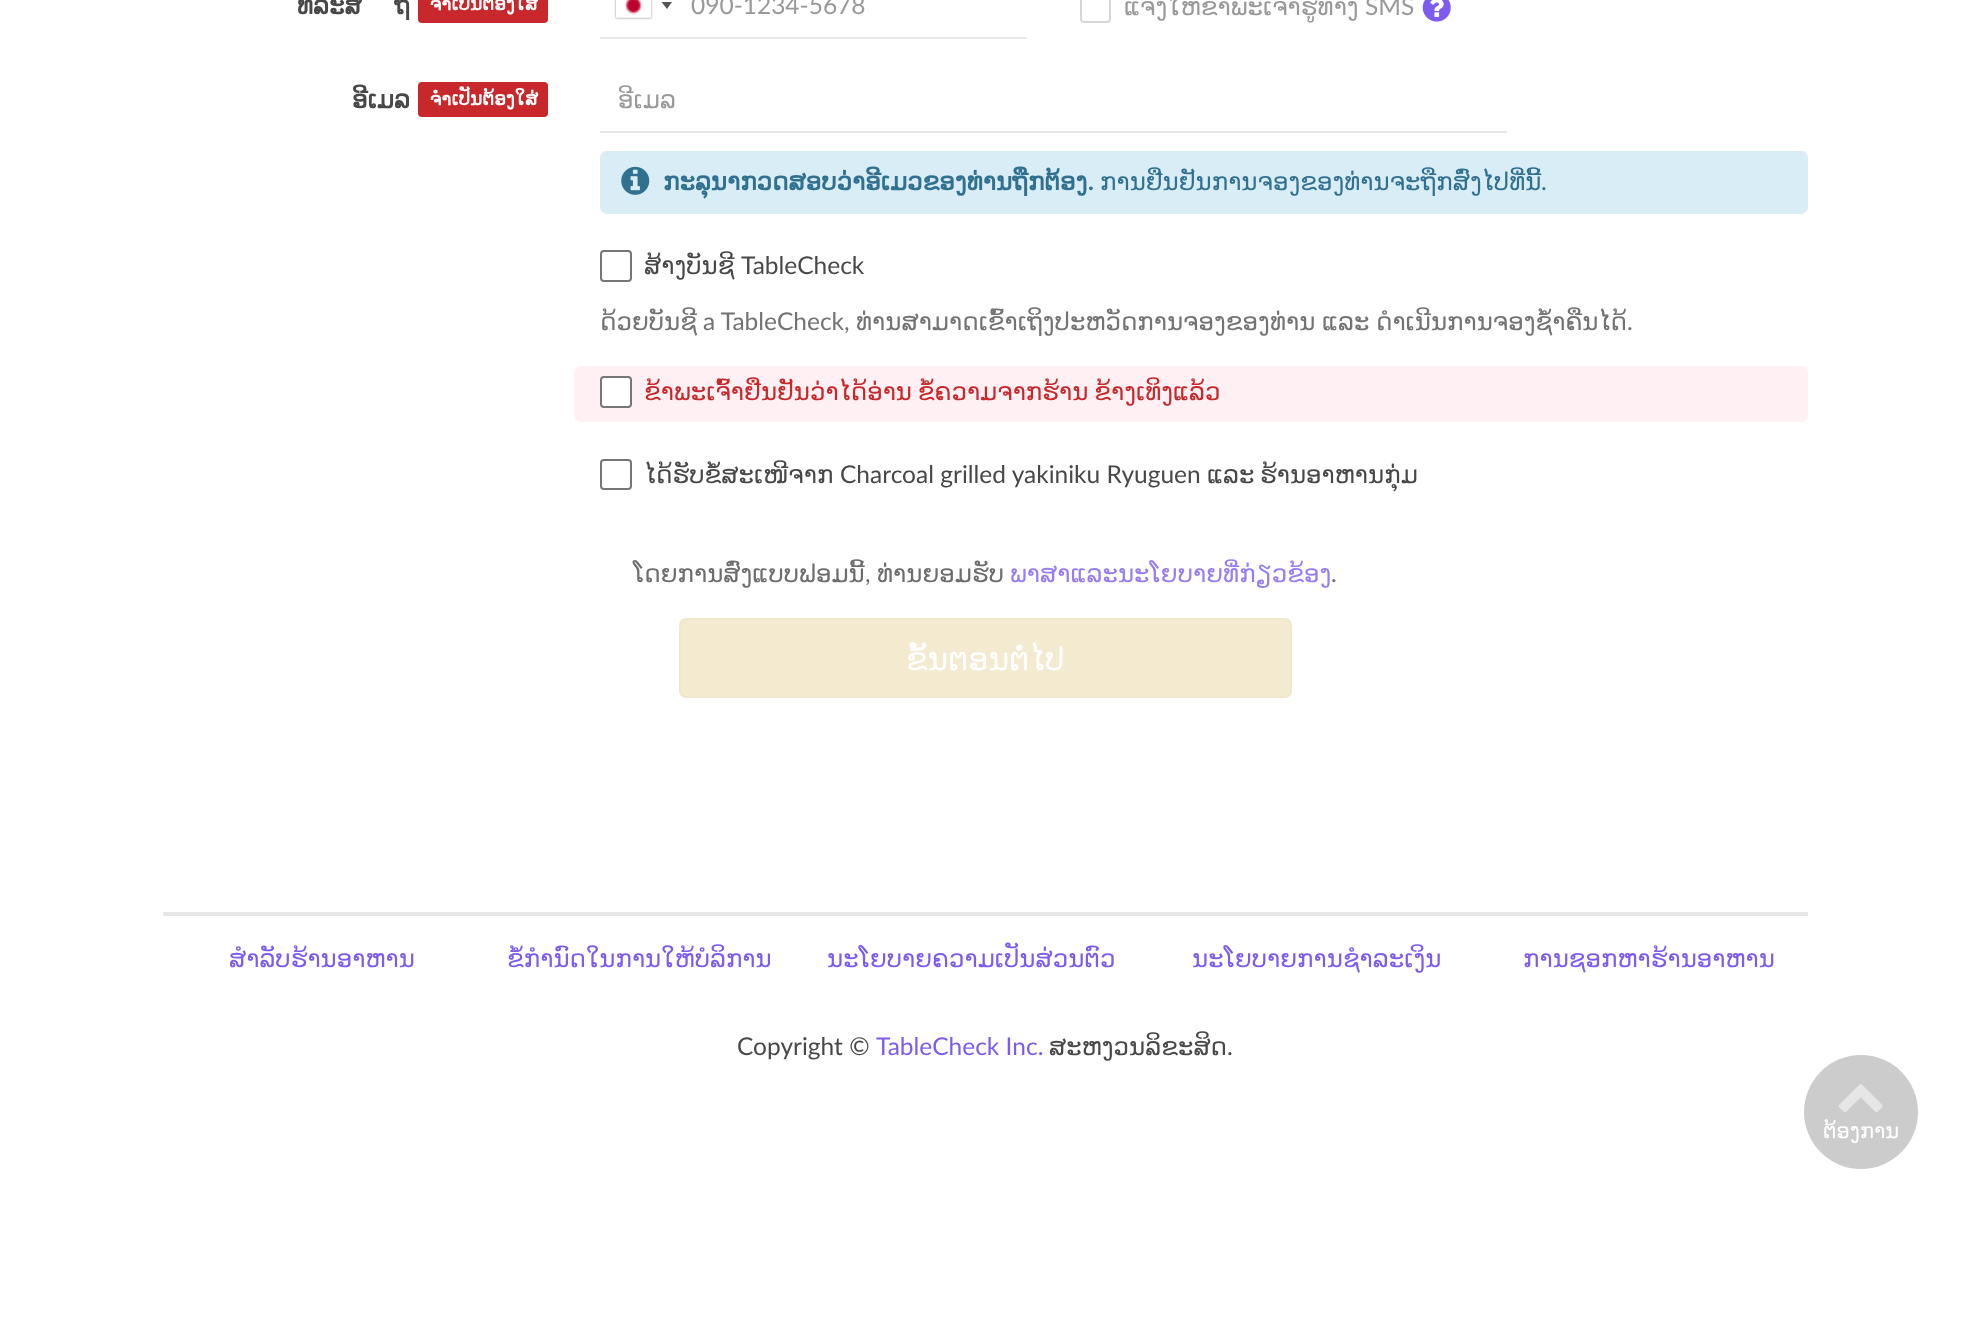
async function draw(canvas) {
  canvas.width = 1969;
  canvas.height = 1344;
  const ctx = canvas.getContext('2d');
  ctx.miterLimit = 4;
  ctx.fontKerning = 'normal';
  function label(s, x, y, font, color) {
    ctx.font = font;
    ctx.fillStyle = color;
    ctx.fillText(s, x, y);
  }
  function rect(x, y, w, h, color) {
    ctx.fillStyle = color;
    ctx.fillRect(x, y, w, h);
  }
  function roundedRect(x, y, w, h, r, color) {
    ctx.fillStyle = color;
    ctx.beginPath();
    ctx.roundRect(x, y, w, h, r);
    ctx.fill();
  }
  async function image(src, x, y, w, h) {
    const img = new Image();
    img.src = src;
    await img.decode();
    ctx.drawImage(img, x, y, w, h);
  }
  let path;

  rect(0, 0, 1969, 1344, '#fff');
  label('ທລະສ', 297, 14, 'bold 24.5px DejaVu Sans', '#484848');
  label('ຖື', 394, 14, 'bold 24.5px DejaVu Sans', '#484848');
  roundedRect(418, -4, 130, 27, 4, '#c8272b');
  label('ຈຳເປັນຕ້ອງໃສ່', 430, 10, 'bold 18.5px DejaVu Sans', '#fff');
  ctx.fillStyle = '#888';
  ctx.filter = 'blur(1px)';
  ctx.beginPath();
  ctx.rect(616, -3, 35, 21);
  ctx.fill();
  ctx.filter = 'none';
  rect(616, 17, 35, 1, '#dbdbdb');
  await image('assets/img1.png', 616, 0, 35, 18);
  ctx.fillStyle = '#555';
  path = new Path2D('M661.5 2H672L667 9Z');
  ctx.fill(path);
  rect(600, 37, 427, 2, '#e6e6e6');
  label('090-1234-5678', 691, 14, '24.5px Lato', '#999');
  ctx.beginPath();
  ctx.roundRect(1081, -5, 29, 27, 3);
  ctx.strokeStyle = '#d6d6d6';
  ctx.lineWidth = 2;
  ctx.stroke();
  label('ແຈ້ງໃຫ້ຂ້າພະເຈົ້າຮູ້ທາງ', 1124, 15, '24.5px DejaVu Sans', '#999');
  label('SMS', 1365, 15, '24.5px Lato', '#999');
  await image('assets/img2.png', 1422, 0, 29, 22);
  label('ອີເມລ', 352, 108, 'bold 24.5px DejaVu Sans', '#484848');
  roundedRect(418, 82, 130, 35, 4, '#c8272b');
  label('ຈຳເປັນຕ້ອງໃສ່', 430, 105, 'bold 18.5px DejaVu Sans', '#fff');
  rect(600, 131, 907, 2, '#e6e6e6');
  ctx.save();
  ctx.beginPath();
  ctx.rect(618, 84, 871, 30);
  ctx.clip();
  label('ອີເມລ', 618, 108, '24.5px DejaVu Sans', '#999');
  ctx.restore();
  roundedRect(600, 151, 1208, 63, 7, '#d9edf7');
  await image('assets/img3.png', 621, 166, 29, 29);
  label('ກະລຸນາກວດສອບວ່າອີເມວຂອງທ່ານຖືກຕ້ອງ', 663, 190, 'bold 24.5px DejaVu Sans', '#31708f');
  label('.', 1088, 190, 'bold 24.5px Lato', '#31708f');
  label('ການຢືນຢັນການຈອງຂອງທ່ານຈະຖືກສົ່ງໄປທີ່ນີ້', 1100, 190, '24.5px DejaVu Sans', '#31708f');
  label('.', 1541, 190, '24.5px Lato', '#31708f');
  ctx.beginPath();
  ctx.roundRect(601, 251, 30, 30, 3);
  ctx.strokeStyle = '#767676';
  ctx.stroke();
  label('ສ້າງບັນຊີ', 644, 274, '24.5px DejaVu Sans', '#484848');
  label('TableCheck', 741, 274, '24.5px Lato', '#484848');
  label('ດ້ວຍບັນຊີ', 600, 330, '24.5px DejaVu Sans', '#737373');
  label('a TableCheck,', 703, 330, '24.5px Lato', '#737373');
  label('ທ່ານສາມາດເຂົ້າເຖິງປະຫວັດການຈອງຂອງທ່ານ', 856, 330, '24.5px DejaVu Sans', '#737373');
  label('ແລະ', 1322, 330, '24.5px DejaVu Sans', '#737373');
  label('ດຳເນີນການຈອງຊ້ຳຄືນໄດ້', 1376, 330, '24.5px DejaVu Sans', '#737373');
  label('.', 1627, 330, '24.5px Lato', '#737373');
  roundedRect(574, 366, 1234, 56, 7, '#fff0f3');
  ctx.fillStyle = '#fff';
  ctx.beginPath();
  ctx.roundRect(601, 377, 30, 30, 3);
  ctx.fill();
  ctx.stroke();
  ctx.wordSpacing = '-2px';
  label('ຂ້າພະເຈົ້າຢືນຢັນວ່າໄດ້ອ່ານ ຂໍ້ຄວາມຈາກຮ້ານ ຂ້າງເທິງແລ້ວ', 644, 400, '24.5px DejaVu Sans', '#c8272b');
  ctx.beginPath();
  ctx.roundRect(601, 460, 30, 29, 3);
  ctx.stroke();
  ctx.wordSpacing = '0px';
  label('ໄດ້ຮັບຂໍ້ສະເໜີຈາກ', 644, 483, '24.5px DejaVu Sans', '#484848');
  label('Charcoal grilled yakiniku Ryuguen', 840, 483, '24.5px Lato', '#484848');
  label('ແລະ', 1207, 483, '24.5px DejaVu Sans', '#484848');
  label('ຮ້ານອາຫານກຸ່ມ', 1260, 483, '24.5px DejaVu Sans', '#484848');
  label('ໂດຍການສົ່ງແບບຟອມນີ້', 633, 582, '24.5px DejaVu Sans', '#6d6d6d');
  label(',', 865, 582, '24.5px Lato', '#6d6d6d');
  label('ທ່ານຍອມຮັບ', 877, 582, '24.5px DejaVu Sans', '#6d6d6d');
  label('ພາສາແລະນະໂຍບາຍທີ່ກ່ຽວຂ້ອງ', 1010, 582, '24.5px DejaVu Sans', '#987cf2');
  label('.', 1331, 582, '24.5px Lato', '#6d6d6d');
  ctx.fillStyle = '#f3ead0';
  ctx.beginPath();
  ctx.roundRect(680, 619, 611, 78, 6);
  ctx.fill();
  ctx.strokeStyle = '#f0e8cc';
  ctx.stroke();
  label('ຂັ້ນຕອນຕໍ່ໄປ', 906, 670, '31.5px DejaVu Sans', '#fff');
  ctx.fillStyle = '#ccc';
  ctx.beginPath();
  ctx.arc(1861, 1112, 57, 0, 2 * Math.PI);
  ctx.fill();
  await image('assets/img4.png', 1838, 1084, 45, 29);
  label('ຕ້ອງການ', 1823, 1138, '21px DejaVu Sans', '#fff');
  rect(163, 912, 1645, 4, '#e6e6e6');
  label('ສຳລັບຮ້ານອາຫານ', 229, 967, '24.5px DejaVu Sans', '#7e5bef');
  label('ຂໍ້ກຳນົດໃນການໃຫ້ບໍລິການ', 507, 967, '24.5px DejaVu Sans', '#7e5bef');
  label('ນະໂຍບາຍຄວາມເປັນສ່ວນຕົວ', 827, 967, '24.5px DejaVu Sans', '#7e5bef');
  label('ນະໂຍບາຍການຊຳລະເງິນ', 1192, 967, '24.5px DejaVu Sans', '#7e5bef');
  label('ການຊອກຫາຮ້ານອາຫານ', 1523, 967, '24.5px DejaVu Sans', '#7e5bef');
  label('Copyright ©', 737, 1055, '24.5px Lato', '#484848');
  label('TableCheck Inc.', 876, 1055, '24.5px Lato', '#7e5bef');
  label('ສະຫງວນລິຂະສິດ', 1049, 1055, '24.5px DejaVu Sans', '#484848');
  label('.', 1227, 1055, '24.5px Lato', '#484848');
}

draw(document.querySelector('canvas'));
